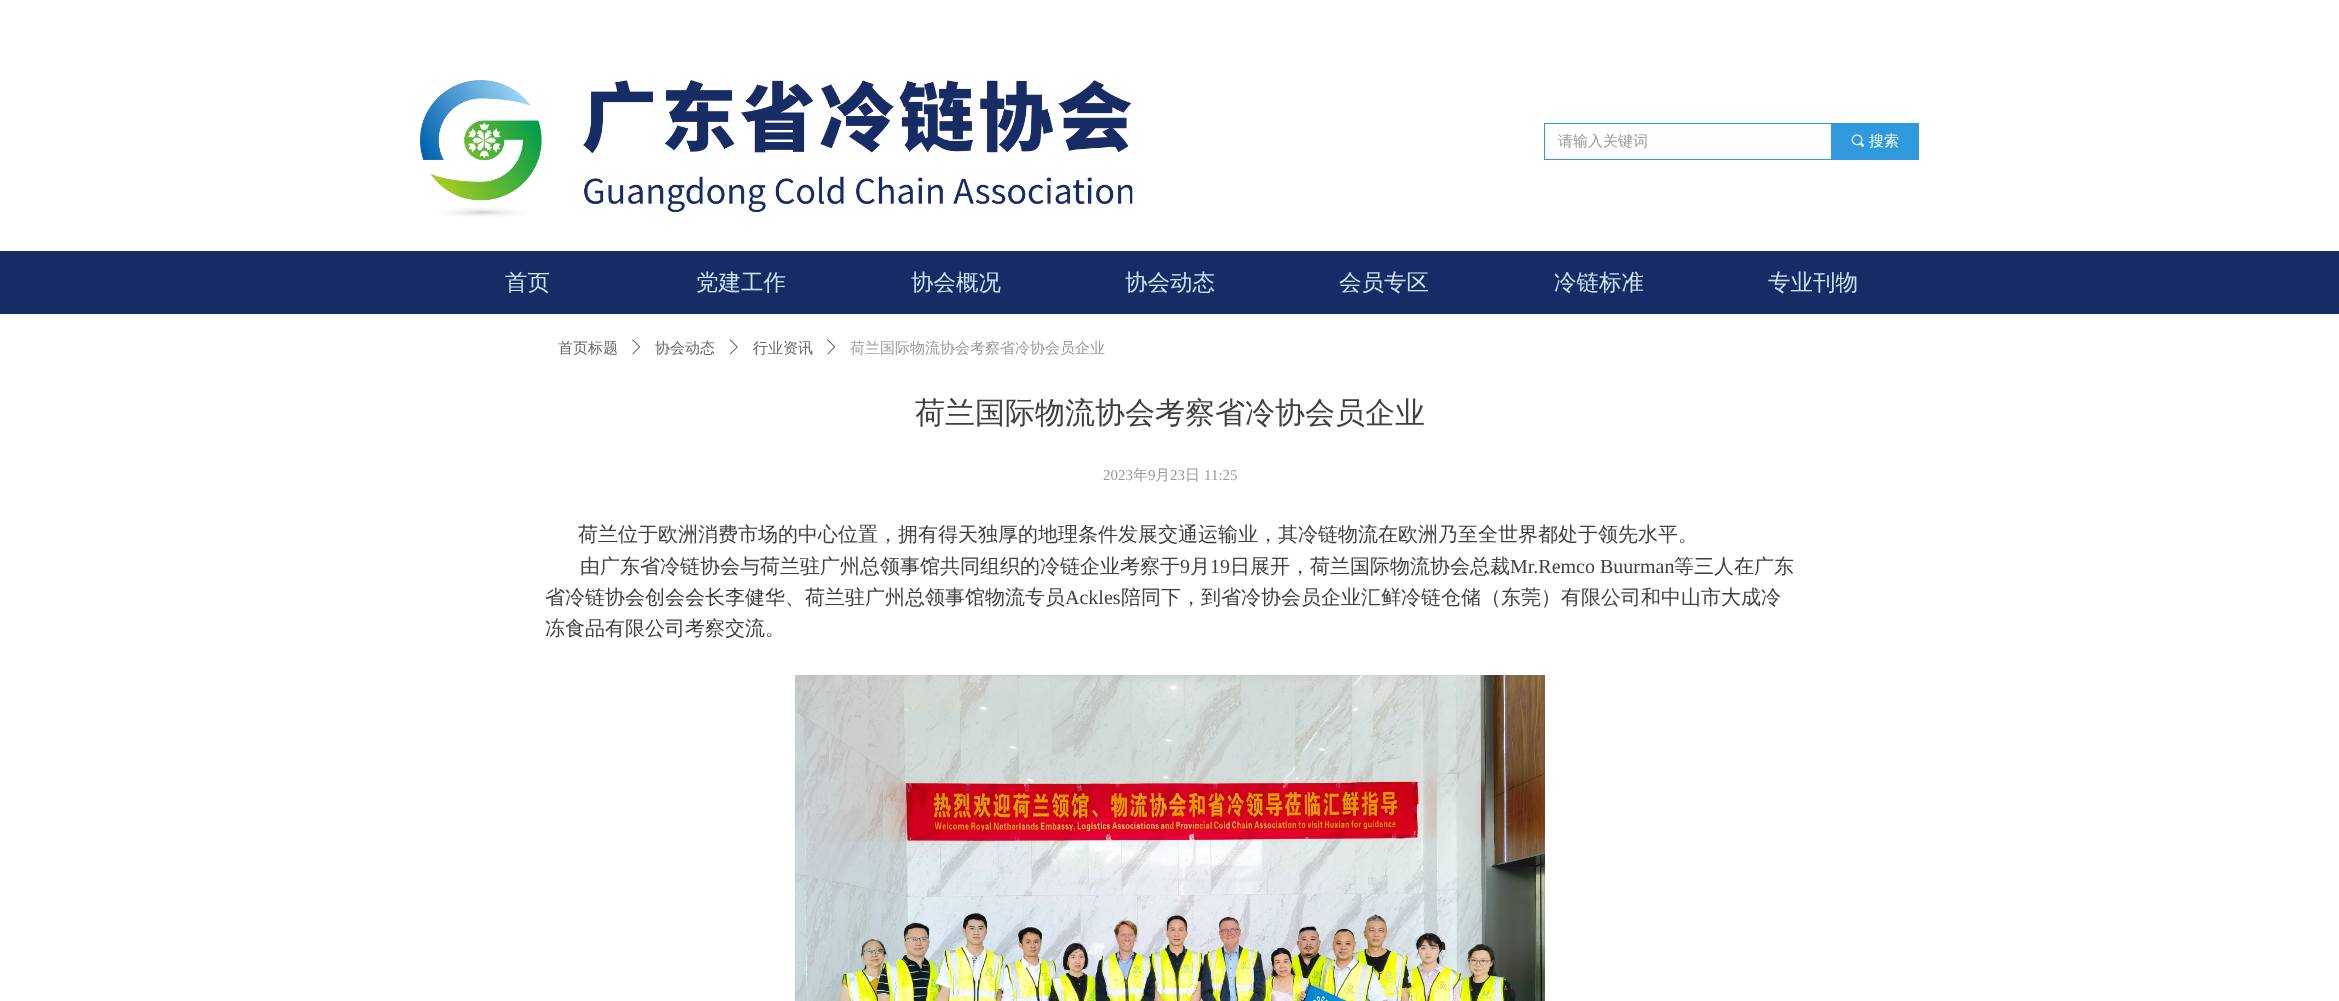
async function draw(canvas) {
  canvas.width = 2339;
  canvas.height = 1001;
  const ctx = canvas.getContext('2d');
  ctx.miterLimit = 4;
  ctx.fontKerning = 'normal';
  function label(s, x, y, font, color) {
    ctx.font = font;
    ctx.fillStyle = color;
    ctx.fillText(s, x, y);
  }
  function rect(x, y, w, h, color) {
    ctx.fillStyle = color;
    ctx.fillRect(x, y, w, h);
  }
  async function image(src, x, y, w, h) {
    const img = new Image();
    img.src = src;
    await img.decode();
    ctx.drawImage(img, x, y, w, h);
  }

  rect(0, 0, 2339, 1001, '#fff');
  await image('assets/img1.png', 420, 80, 713, 137);
  ctx.strokeStyle = '#3099dd';
  ctx.strokeRect(1544.5, 123.5, 374, 36);
  label('请输入关键词', 1558, 146, '500 15px WenQuanYi Zen Hei', '#999');
  rect(1831, 124, 87, 35, '#3099dd');
  await image('assets/img2.png', 1851, 134, 13, 13);
  label('搜索', 1869, 146, '500 15px WenQuanYi Zen Hei', '#fff');
  rect(0, 251, 2339, 63, '#172c65');
  label('首页', 505, 290, '500 22.5px WenQuanYi Zen Hei', '#cfe2f3');
  label('党建工作', 696, 290, '500 22.5px WenQuanYi Zen Hei', '#cfe2f3');
  label('协会概况', 911, 290, '500 22.5px WenQuanYi Zen Hei', '#cfe2f3');
  label('协会动态', 1125, 290, '500 22.5px WenQuanYi Zen Hei', '#cfe2f3');
  label('会员专区', 1339, 290, '500 22.5px WenQuanYi Zen Hei', '#cfe2f3');
  label('冷链标准', 1554, 290, '500 22.5px WenQuanYi Zen Hei', '#cfe2f3');
  label('专业刊物', 1768, 290, '500 22.5px WenQuanYi Zen Hei', '#cfe2f3');
  label('首页标题', 558, 353, '500 15px WenQuanYi Zen Hei', '#666');
  await image('assets/img3.png', 632, 339, 9, 16);
  label('协会动态', 655, 353, '500 15px WenQuanYi Zen Hei', '#666');
  await image('assets/img4.png', 729, 339, 9, 16);
  label('行业资讯', 753, 353, '500 15px WenQuanYi Zen Hei', '#666');
  await image('assets/img3.png', 827, 339, 9, 16);
  label('荷兰国际物流协会考察省冷协会员企业', 850, 353, '500 15px WenQuanYi Zen Hei', '#999');
  label('荷兰国际物流协会考察省冷协会员企业', 915, 423, '500 30px WenQuanYi Zen Hei', '#404040');
  label('2023', 1103, 480, '15px Liberation Serif', '#999');
  label('年', 1133, 480, '500 15px WenQuanYi Zen Hei', '#999');
  label('9', 1148, 480, '15px Liberation Serif', '#999');
  label('月', 1155, 480, '500 15px WenQuanYi Zen Hei', '#999');
  label('23', 1170, 480, '15px Liberation Serif', '#999');
  label('日', 1185, 480, '500 15px WenQuanYi Zen Hei', '#999');
  label('11:25', 1204, 480, '15px Liberation Serif', '#999');
  label('荷兰位于欧洲消费市场的中心位置，拥有得天独厚的地理条件发展交通运输业，其冷链物流在欧洲乃至全世界都处于领先水平。', 578, 541, '500 20px WenQuanYi Zen Hei', '#404040');
  label('由广东省冷链协会与荷兰驻广州总领事馆共同组织的冷链企业考察于', 580, 573, '500 20px WenQuanYi Zen Hei', '#404040');
  label('9', 1180, 573, '20px Liberation Serif', '#404040');
  label('月', 1190, 573, '500 20px WenQuanYi Zen Hei', '#404040');
  label('19', 1210, 573, '20px Liberation Serif', '#404040');
  label('日展开，荷兰国际物流协会总裁', 1230, 573, '500 20px WenQuanYi Zen Hei', '#404040');
  label('Mr.Remco Buurman', 1510, 573, '20px Liberation Serif', '#404040');
  label('等三人在广东', 1674, 573, '500 20px WenQuanYi Zen Hei', '#404040');
  label('省冷链协会创会会长李健华、荷兰驻广州总领事馆物流专员', 545, 604, '500 20px WenQuanYi Zen Hei', '#404040');
  label('Ackles', 1065, 604, '20px Liberation Serif', '#404040');
  label('陪同下，到省冷协会员企业汇鲜冷链仓储（东莞）有限公司和中山市大成冷', 1121, 604, '500 20px WenQuanYi Zen Hei', '#404040');
  label('冻食品有限公司考察交流。', 545, 635, '500 20px WenQuanYi Zen Hei', '#404040');
  await image('assets/img5.png', 795, 675, 750, 326);
}

draw(document.querySelector('canvas'));
